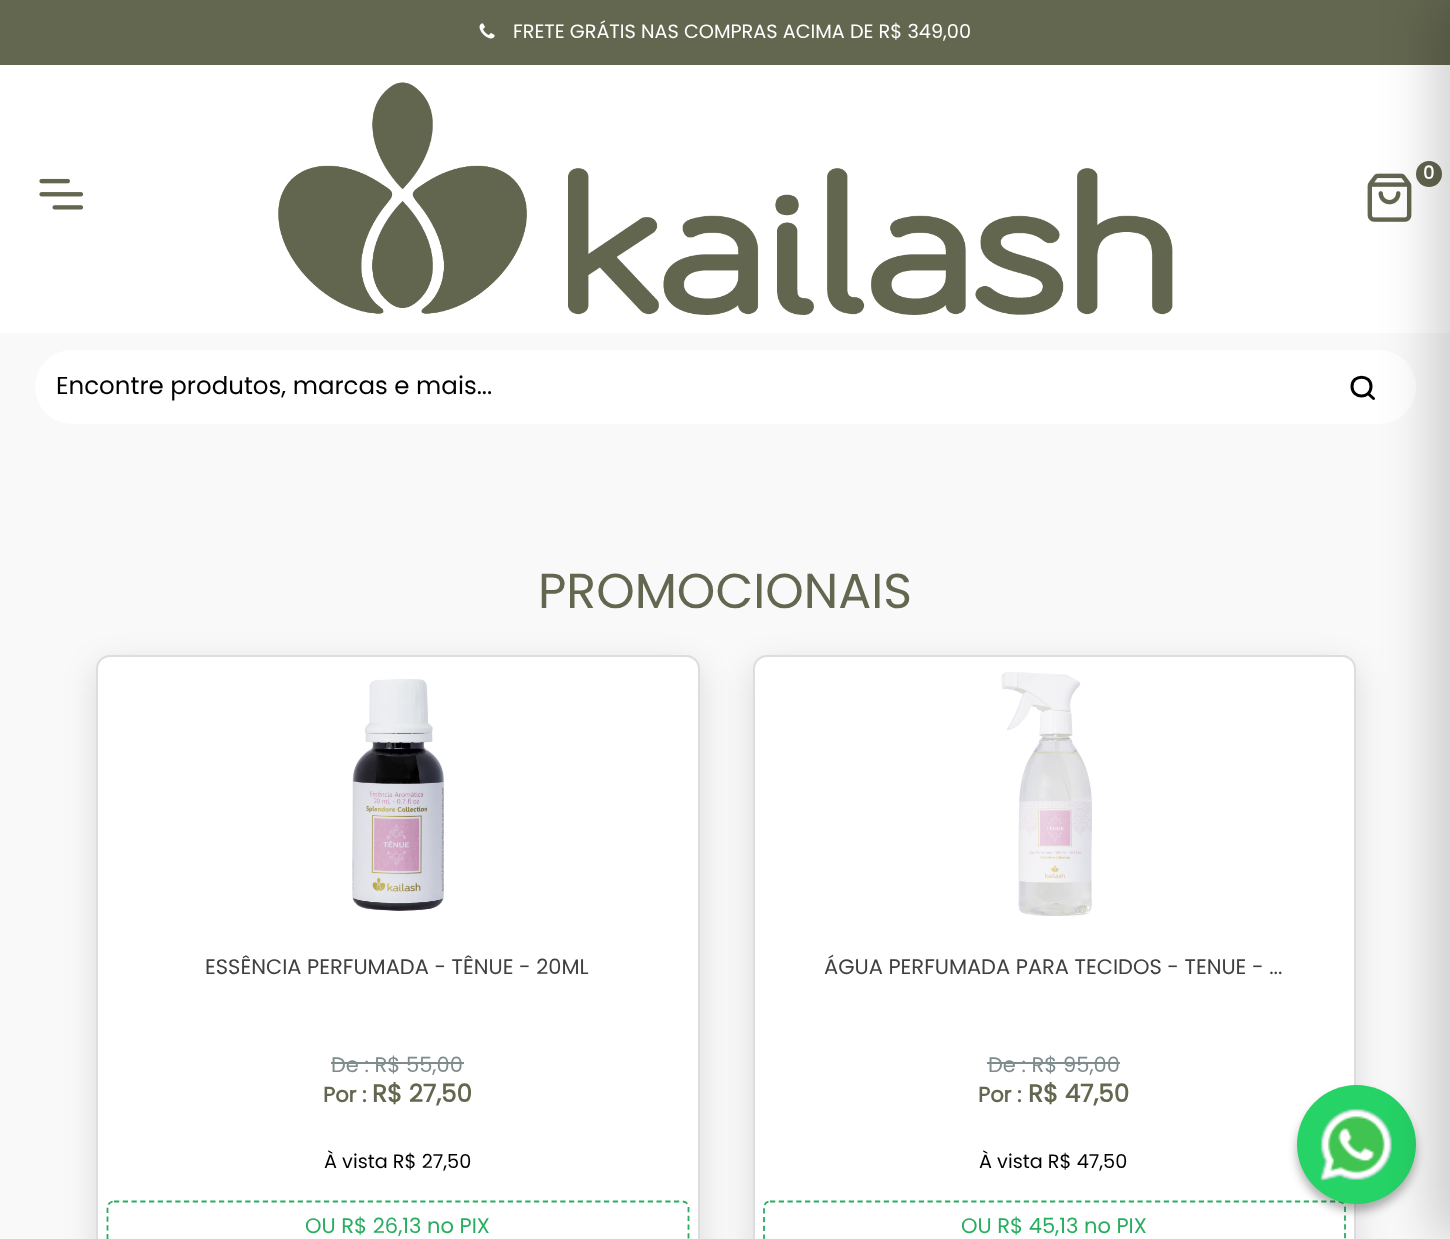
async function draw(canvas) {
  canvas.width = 1450;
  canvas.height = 1239;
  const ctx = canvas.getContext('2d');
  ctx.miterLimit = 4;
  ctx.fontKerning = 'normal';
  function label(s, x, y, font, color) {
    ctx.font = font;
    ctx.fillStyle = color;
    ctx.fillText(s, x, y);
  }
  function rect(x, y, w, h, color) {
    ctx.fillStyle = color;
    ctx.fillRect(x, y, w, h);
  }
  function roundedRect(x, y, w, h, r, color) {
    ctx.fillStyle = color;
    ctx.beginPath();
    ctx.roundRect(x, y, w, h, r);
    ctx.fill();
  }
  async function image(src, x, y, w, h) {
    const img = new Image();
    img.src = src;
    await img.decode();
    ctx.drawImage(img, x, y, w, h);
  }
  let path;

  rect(0, 0, 1450, 1239, '#f9f9f9');
  rect(0, 0, 1450, 65, '#63674f');
  await image('assets/img1.png', 479, 23, 16, 16);
  label('FRETE GRÁTIS NAS COMPRAS ACIMA DE R$ 349,00', 513, 38, '19.25px Poppins', '#fff');
  rect(0, 65, 1450, 268, '#fff');
  await image('assets/img3.png', 1367, 173, 45, 49);
  ctx.fillStyle = '#63674f';
  ctx.beginPath();
  ctx.arc(1429, 174, 13, 0, 2 * Math.PI);
  ctx.fill();
  roundedRect(35, 350, 1381, 74, 37, '#fff');
  path = new Path2D('M1373.5 398.5L1368 393.5M1371 386.5C1371 374 1352 374 1352 386.5C1352 399 1371 399 1371 386.5Z');
  ctx.strokeStyle = '#000';
  ctx.lineWidth = 3;
  ctx.lineCap = 'round';
  ctx.lineJoin = 'round';
  ctx.stroke(path);
  ctx.fillStyle = '#0000001f';
  ctx.filter = 'blur(16px)';
  ctx.beginPath();
  ctx.roundRect(753, 665, 603, 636, 14);
  ctx.fill();
  ctx.filter = 'none';
  ctx.fillStyle = '#fff';
  ctx.beginPath();
  ctx.roundRect(754, 656, 601, 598, 13);
  ctx.fill();
  ctx.strokeStyle = '#ddd';
  ctx.lineWidth = 2;
  ctx.lineJoin = 'miter';
  ctx.stroke();
  path = new Path2D('M770 1201.5H1339C1342 1201.5 1345 1204 1345 1207.5V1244C1345 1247.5 1342 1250.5 1339 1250.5H770C766.5 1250.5 764 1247.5 764 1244V1207.5C764 1204 766.5 1201.5 770 1201.5Z');
  ctx.strokeStyle = '#27ae60';
  ctx.lineWidth = 1.8;
  ctx.lineCap = 'butt';
  ctx.setLineDash([5.25, 3.5]);
  ctx.stroke(path);
  ctx.fillStyle = '#0000004d';
  ctx.filter = 'blur(5px)';
  ctx.beginPath();
  ctx.roundRect(1297, 1092, 119, 119, 59.5);
  ctx.fill();
  ctx.filter = 'none';
  ctx.fillStyle = '#25d366';
  ctx.beginPath();
  ctx.arc(1356.5, 1144.5, 59.5, 0, 2 * Math.PI);
  ctx.fill();
  await image('assets/img7.png', 1319, 1109, 73, 73);
  ctx.fillStyle = '#0000002e';
  ctx.filter = 'blur(26px)';
  ctx.beginPath();
  ctx.rect(1433, 0, 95, 1239);
  ctx.fill();
  ctx.filter = 'none';
  await image('assets/img2.png', 278, 82, 895, 233);
  label('0', 1423, 179, 'bold 18px Poppins', '#fff');
  await image('assets/img4.png', 39, 178, 45, 32);
  label('Encontre produtos, marcas e mais...', 56, 394, '24.5px Poppins', '#000');
  label('PROMOCIONAIS', 538, 608, '49px Poppins', '#63674f');
  ctx.fillStyle = '#0000001f';
  ctx.filter = 'blur(16px)';
  ctx.beginPath();
  ctx.roundRect(96, 665, 604, 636, 14);
  ctx.fill();
  ctx.filter = 'none';
  ctx.fillStyle = '#fff';
  ctx.beginPath();
  ctx.roundRect(97, 656, 602, 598, 13);
  ctx.fill();
  ctx.strokeStyle = '#ddd';
  ctx.lineWidth = 2;
  ctx.setLineDash([]);
  ctx.stroke();
  await image('assets/img5.png', 352, 679, 92, 232);
  label('ESSÊNCIA PERFUMADA - TÊNUE - 20ML', 205, 974, '21px Poppins', '#404040');
  label('De : R$ 55,00', 331, 1072, '21px Poppins', '#7f8c8d');
  rect(331, 1062, 133, 2, '#7f8c8d');
  label('Por :', 323, 1102, 'bold 21px Poppins', '#63674f');
  label('R$ 27,50', 372, 1102, 'bold 24.5px Poppins', '#63674f');
  label('À vista R$ 27,50', 324, 1168, '19.25px Poppins', '#000');
  path = new Path2D('M114 1201.5H682.5C686 1201.5 688.5 1204 688.5 1207.5V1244C688.5 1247.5 686 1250.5 682.5 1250.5H114C110.5 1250.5 107.5 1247.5 107.5 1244V1207.5C107.5 1204 110.5 1201.5 114 1201.5Z');
  ctx.strokeStyle = '#27ae60';
  ctx.lineWidth = 1.8;
  ctx.setLineDash([5.25, 3.5]);
  ctx.stroke(path);
  label('OU R$ 26,13 no PIX', 305, 1233, '21px Poppins', '#27ae60');
  await image('assets/img6.png', 1001, 672, 91, 244);
  label('ÁGUA PERFUMADA PARA TECIDOS - TENUE - ...', 824, 974, '21px Poppins', '#404040');
  label('De : R$ 95,00', 988, 1072, '21px Poppins', '#7f8c8d');
  rect(987, 1062, 133, 2, '#7f8c8d');
  label('Por :', 978, 1102, 'bold 21px Poppins', '#63674f');
  label('R$ 47,50', 1028, 1102, 'bold 24.5px Poppins', '#63674f');
  label('À vista R$ 47,50', 979, 1168, '19.25px Poppins', '#000');
  label('OU R$ 45,13 no PIX', 961, 1233, '21px Poppins', '#27ae60');
}

draw(document.querySelector('canvas'));
